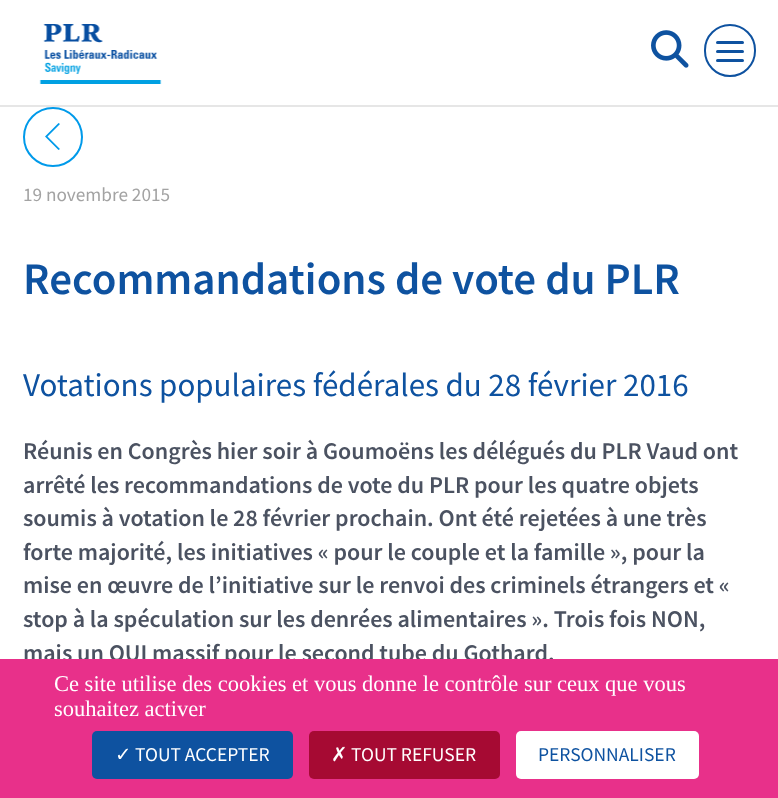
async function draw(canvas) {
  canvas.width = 778;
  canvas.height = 798;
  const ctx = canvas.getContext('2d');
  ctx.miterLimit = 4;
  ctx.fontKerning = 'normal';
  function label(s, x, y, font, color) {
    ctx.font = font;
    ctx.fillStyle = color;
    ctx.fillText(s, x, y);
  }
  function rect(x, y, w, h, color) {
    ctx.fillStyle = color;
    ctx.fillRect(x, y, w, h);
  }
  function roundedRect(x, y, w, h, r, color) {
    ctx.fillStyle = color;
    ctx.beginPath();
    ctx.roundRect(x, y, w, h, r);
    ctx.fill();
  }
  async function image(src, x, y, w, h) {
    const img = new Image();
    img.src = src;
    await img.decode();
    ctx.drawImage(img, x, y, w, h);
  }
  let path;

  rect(0, 0, 778, 798, '#fff');
  rect(0, 105, 778, 2, '#e6e6e6');
  await image('assets/img1.png', 39, 24, 123, 60);
  await image('assets/img2.png', 651, 30, 38, 38);
  ctx.beginPath();
  ctx.roundRect(705, 25, 50, 51, 25);
  ctx.strokeStyle = '#0e52a0';
  ctx.lineWidth = 2;
  ctx.stroke();
  roundedRect(716, 41, 28, 3, 1.5, '#0e52a0');
  roundedRect(716, 50, 28, 3, 1.5, '#0e52a0');
  roundedRect(716, 59, 28, 3, 1.5, '#0e52a0');
  ctx.beginPath();
  ctx.arc(53, 137, 29, 0, 2 * Math.PI);
  ctx.strokeStyle = '#009aea';
  ctx.stroke();
  ctx.fillStyle = '#009aea';
  path = new Path2D('M45 136.5L58.5 123L60 124L47.5 136.5L60 149L58.5 150Z');
  ctx.fill(path);
  label('19 novembre 2015', 23, 201, '19.25px Source Sans Pro', '#a3a3a3');
  label('Recommandations de vote du PLR', 23, 294, '600 45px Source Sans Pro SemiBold', '#0e52a0');
  label('Votations populaires fédérales du 28 février 2016', 23, 396, '33px Source Sans Pro', '#0e52a0');
  label('Réunis en Congrès hier soir à Goumoëns les délégués du PLR Vaud ont', 23, 459, '600 24px Source Sans Pro SemiBold', '#4b5261');
  label('arrêté les recommandations de vote du PLR pour les quatre objets', 23, 493, '600 24px Source Sans Pro SemiBold', '#4b5261');
  label('soumis à votation le 28 février prochain. Ont été rejetées à une très', 23, 526, '600 24px Source Sans Pro SemiBold', '#4b5261');
  label('forte majorité, les initiatives « pour le couple et la famille », pour la', 23, 560, '600 24px Source Sans Pro SemiBold', '#4b5261');
  label('mise en œuvre de l’initiative sur le renvoi des criminels étrangers et «', 23, 593, '600 24px Source Sans Pro SemiBold', '#4b5261');
  label('stop à la spéculation sur les denrées alimentaires ». Trois fois NON,', 23, 627, '600 24px Source Sans Pro SemiBold', '#4b5261');
  label('mais un OUI massif pour le second tube du Gothard.', 23, 661, '600 24px Source Sans Pro SemiBold', '#4b5261');
  rect(0, 659, 778, 139, '#e8308a');
  label('Ce site utilise des cookies et vous donne le contrôle sur ceux que vous', 54, 691, '22.5px Liberation Serif', '#fff');
  label('souhaitez activer', 54, 716, '22.5px Liberation Serif', '#fff');
  roundedRect(92, 731, 201, 48, 5, '#0e52a0');
  label('✓', 115, 761, '19.5px DejaVu Sans', '#fff');
  label('TOUT ACCEPTER', 135, 761, '19.5px Source Sans Pro', '#fff');
  roundedRect(309, 731, 191, 48, 5, '#a60a33');
  label('✗', 331, 761, '19.5px DejaVu Sans', '#fff');
  label('TOUT REFUSER', 351, 761, '19.5px Source Sans Pro', '#fff');
  roundedRect(516, 731, 183, 48, 5, '#fff');
  label('PERSONNALISER', 538, 761, '19.5px Source Sans Pro', '#0e52a0');
}

draw(document.querySelector('canvas'));
